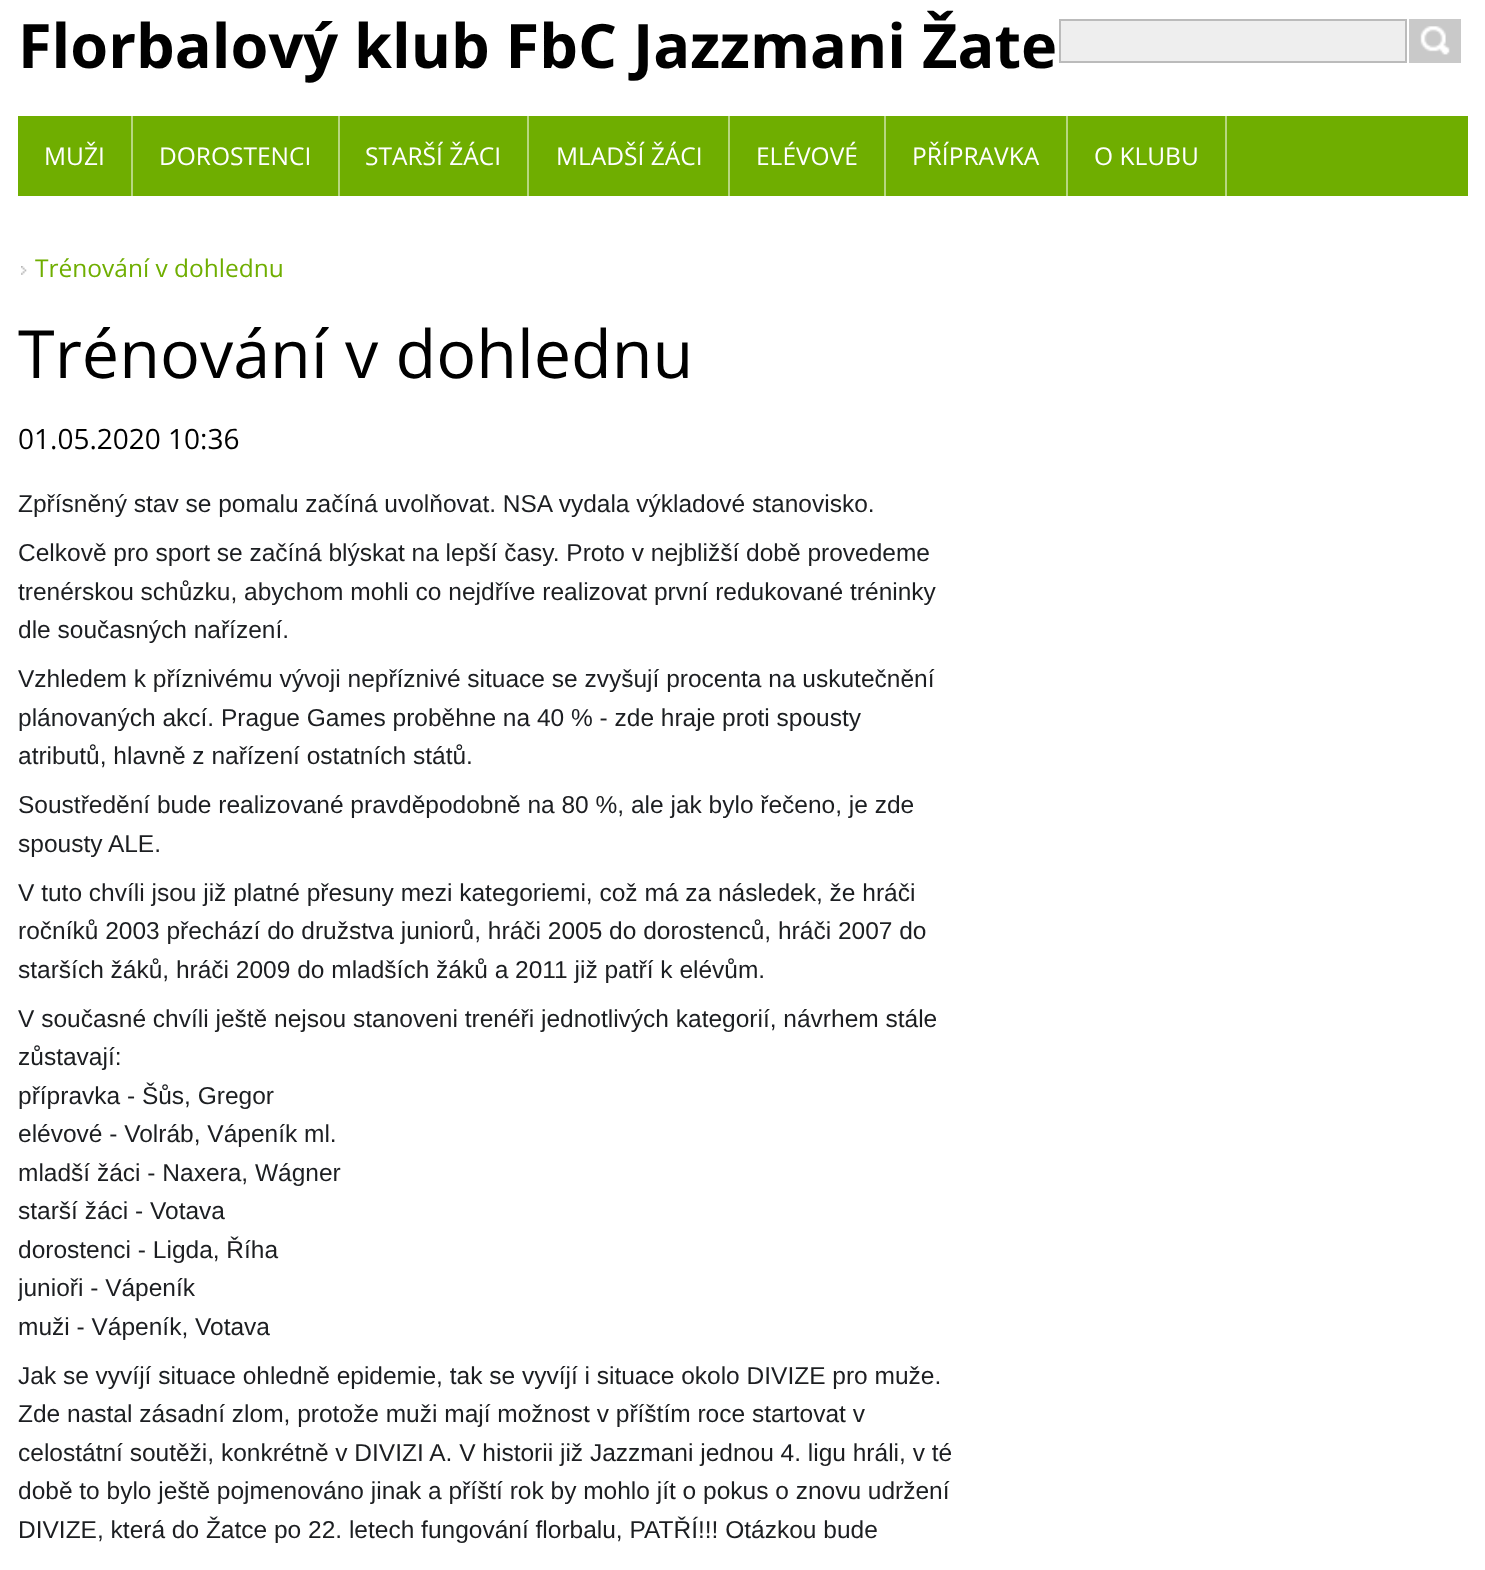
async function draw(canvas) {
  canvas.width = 1485;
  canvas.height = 1570;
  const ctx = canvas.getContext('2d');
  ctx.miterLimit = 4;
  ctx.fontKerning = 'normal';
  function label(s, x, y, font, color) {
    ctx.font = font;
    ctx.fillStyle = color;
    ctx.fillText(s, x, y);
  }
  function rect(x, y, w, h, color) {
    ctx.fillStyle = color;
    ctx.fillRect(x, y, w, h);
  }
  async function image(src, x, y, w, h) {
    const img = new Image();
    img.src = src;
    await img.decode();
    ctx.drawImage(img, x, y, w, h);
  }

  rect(0, 0, 1485, 1570, '#fff');
  label('Florbalový klub FbC Jazzmani Žate', 18, 68, 'bold 61.25px Open Sans', '#000');
  ctx.fillStyle = '#eee';
  ctx.beginPath();
  ctx.rect(1060, 20, 346, 42);
  ctx.fill();
  ctx.strokeStyle = '#bbb';
  ctx.lineWidth = 2;
  ctx.stroke();
  rect(1409, 19, 52, 44, '#c9c9c9');
  await image('assets/img1.png', 1420, 26, 30, 29);
  rect(18, 116, 1450, 80, '#6fae00');
  rect(131, 116, 2, 80, '#b7d780');
  label('MUŽI', 44, 165, '24.5px Open Sans', '#fff');
  rect(338, 116, 2, 80, '#b7d780');
  label('DOROSTENCI', 159, 165, '24.5px Open Sans', '#fff');
  rect(527, 116, 2, 80, '#b7d780');
  label('STARŠÍ ŽÁCI', 365, 165, '24.5px Open Sans', '#fff');
  rect(728, 116, 2, 80, '#b7d780');
  label('MLADŠÍ ŽÁCI', 556, 165, '24.5px Open Sans', '#fff');
  rect(884, 116, 2, 80, '#b7d780');
  label('ELÉVOVÉ', 756, 165, '24.5px Open Sans', '#fff');
  rect(1066, 116, 2, 80, '#b7d780');
  label('PŘÍPRAVKA', 912, 165, '24.5px Open Sans', '#fff');
  rect(1225, 116, 2, 80, '#b7d780');
  label('O KLUBU', 1094, 165, '24.5px Open Sans', '#fff');
  await image('assets/img2.png', 21, 266, 6, 9);
  label('Trénování v dohlednu', 35, 277, '24.5px Open Sans', '#6fae00');
  label('Trénování v dohlednu', 18, 378, '66.5px Open Sans', '#000');
  label('01.05.2020 10:36', 18, 449, '28px Open Sans', '#000');
  label('Zpřísněný stav se pomalu začíná uvolňovat. NSA vydala výkladové stanovisko.', 18, 512, '24.5px Liberation Sans', '#1c1e21');
  label('Celkově pro sport se začíná blýskat na lepší časy. Proto v nejbližší době provedeme', 18, 561, '24.5px Liberation Sans', '#1c1e21');
  label('trenérskou schůzku, abychom mohli co nejdříve realizovat první redukované tréninky', 18, 600, '24.5px Liberation Sans', '#1c1e21');
  label('dle současných nařízení.', 18, 638, '24.5px Liberation Sans', '#1c1e21');
  label('Vzhledem k příznivému vývoji nepříznivé situace se zvyšují procenta na uskutečnění', 18, 687, '24.5px Liberation Sans', '#1c1e21');
  label('plánovaných akcí. Prague Games proběhne na 40 % - zde hraje proti spousty', 18, 726, '24.5px Liberation Sans', '#1c1e21');
  label('atributů, hlavně z nařízení ostatních států.', 18, 764, '24.5px Liberation Sans', '#1c1e21');
  label('Soustředění bude realizované pravděpodobně na 80 %, ale jak bylo řečeno, je zde', 18, 813, '24.5px Liberation Sans', '#1c1e21');
  label('spousty ALE.', 18, 852, '24.5px Liberation Sans', '#1c1e21');
  label('V tuto chvíli jsou již platné přesuny mezi kategoriemi, což má za následek, že hráči', 18, 901, '24.5px Liberation Sans', '#1c1e21');
  label('ročníků 2003 přechází do družstva juniorů, hráči 2005 do dorostenců, hráči 2007 do', 18, 939, '24.5px Liberation Sans', '#1c1e21');
  label('starších žáků, hráči 2009 do mladších žáků a 2011 již patří k elévům.', 18, 978, '24.5px Liberation Sans', '#1c1e21');
  label('V současné chvíli ještě nejsou stanoveni trenéři jednotlivých kategorií, návrhem stále', 18, 1027, '24.5px Liberation Sans', '#1c1e21');
  label('zůstavají:', 18, 1065, '24.5px Liberation Sans', '#1c1e21');
  label('přípravka - Šůs, Gregor', 18, 1104, '24.5px Liberation Sans', '#1c1e21');
  label('elévové - Volráb, Vápeník ml.', 18, 1142, '24.5px Liberation Sans', '#1c1e21');
  label('mladší žáci - Naxera, Wágner', 18, 1181, '24.5px Liberation Sans', '#1c1e21');
  label('starší žáci - Votava', 18, 1219, '24.5px Liberation Sans', '#1c1e21');
  label('dorostenci - Ligda, Říha', 18, 1258, '24.5px Liberation Sans', '#1c1e21');
  ctx.save();
  ctx.beginPath();
  ctx.rect(18, 313, 936, 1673);
  ctx.clip();
  label('junioři - Vápeník', 18, 1296, '24.5px Liberation Sans', '#1c1e21');
  ctx.restore();
  label('muži - Vápeník, Votava', 18, 1335, '24.5px Liberation Sans', '#1c1e21');
  label('Jak se vyvíjí situace ohledně epidemie, tak se vyvíjí i situace okolo DIVIZE pro muže.', 18, 1384, '24.5px Liberation Sans', '#1c1e21');
  label('Zde nastal zásadní zlom, protože muži mají možnost v příštím roce startovat v', 18, 1422, '24.5px Liberation Sans', '#1c1e21');
  label('celostátní soutěži, konkrétně v DIVIZI A. V historii již Jazzmani jednou 4. ligu hráli, v té', 18, 1461, '24.5px Liberation Sans', '#1c1e21');
  label('době to bylo ještě pojmenováno jinak a příští rok by mohlo jít o pokus o znovu udržení', 18, 1499, '24.5px Liberation Sans', '#1c1e21');
  label('DIVIZE, která do Žatce po 22. letech fungování florbalu, PATŘÍ!!! Otázkou bude', 18, 1538, '24.5px Liberation Sans', '#1c1e21');
}

draw(document.querySelector('canvas'));
